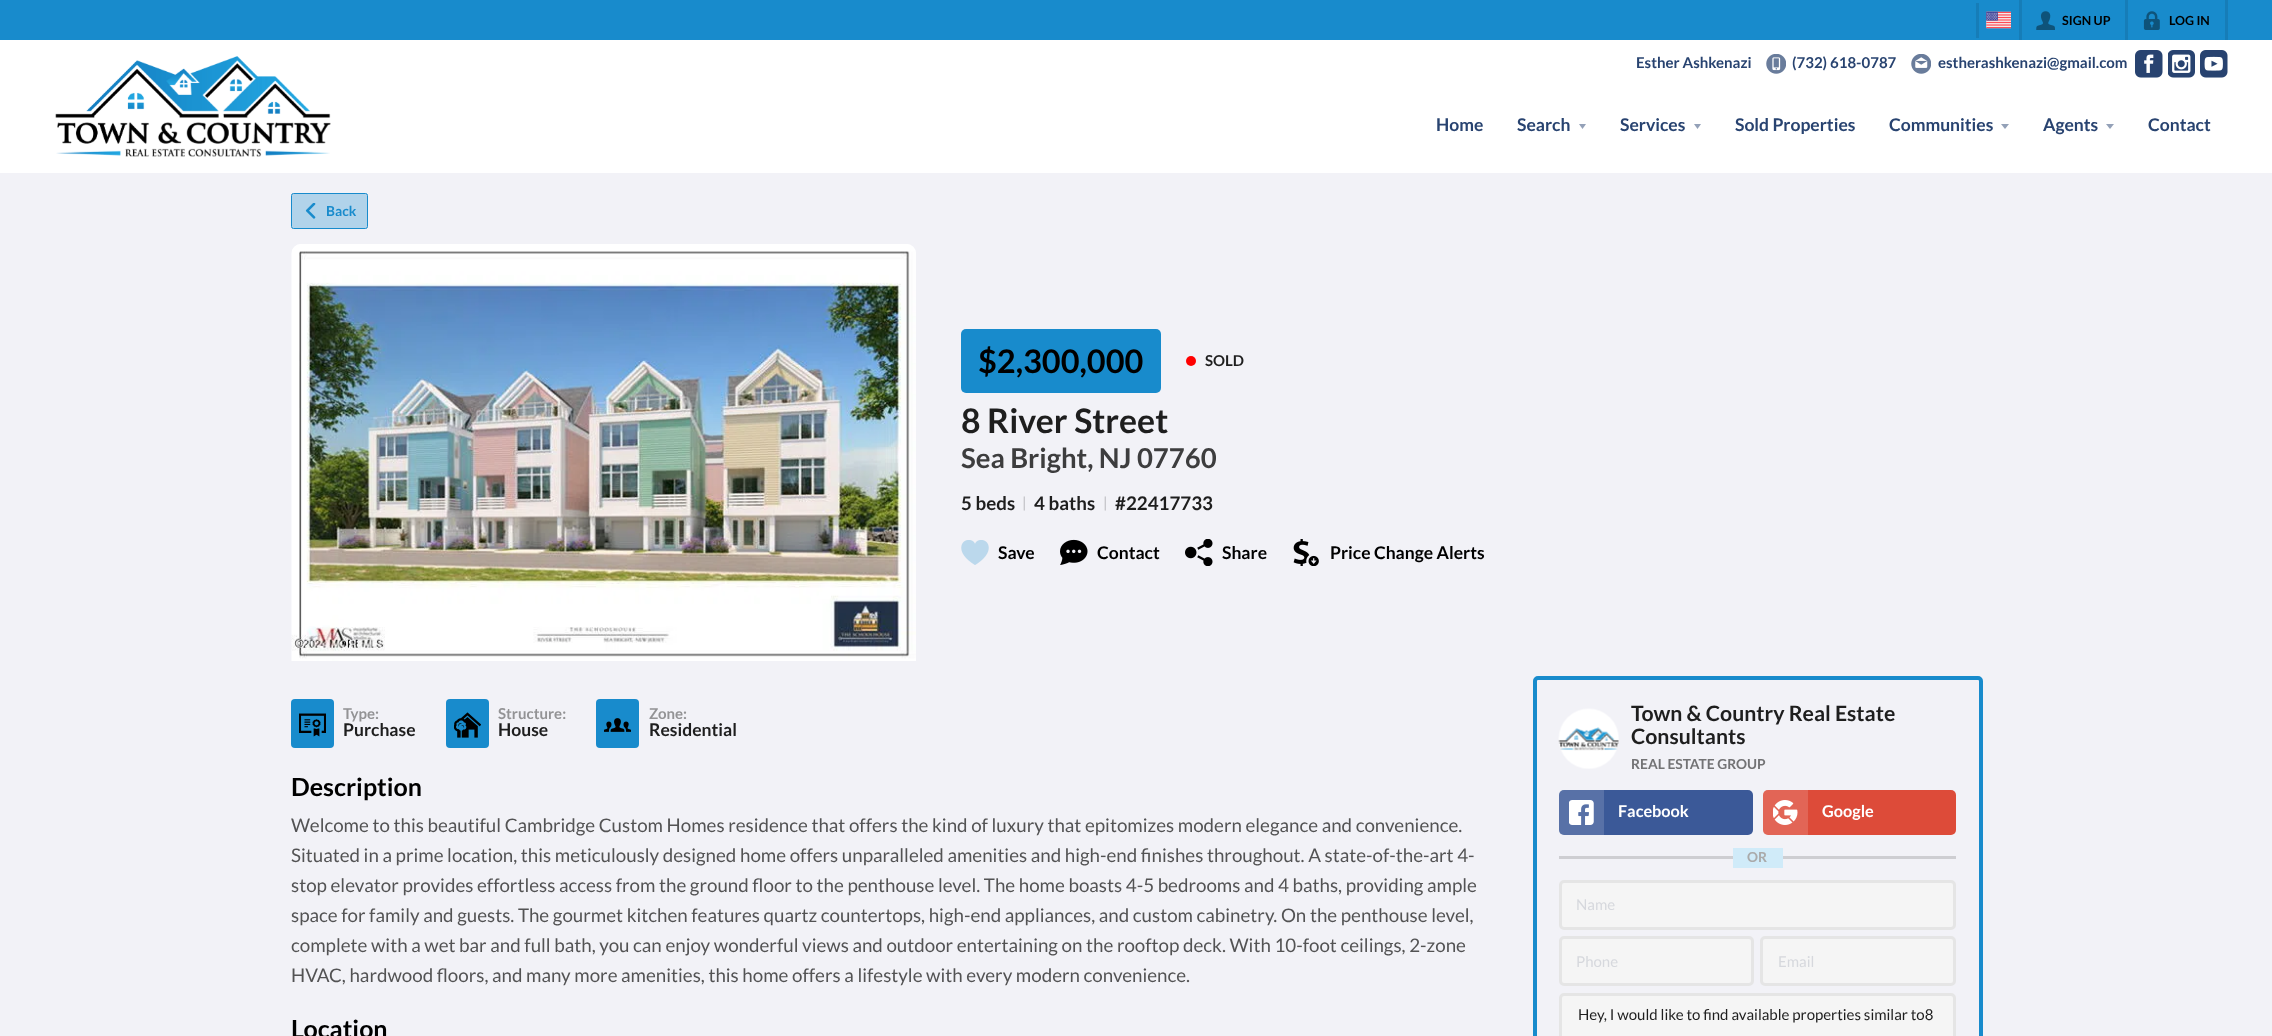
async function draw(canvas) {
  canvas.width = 2272;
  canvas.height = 1036;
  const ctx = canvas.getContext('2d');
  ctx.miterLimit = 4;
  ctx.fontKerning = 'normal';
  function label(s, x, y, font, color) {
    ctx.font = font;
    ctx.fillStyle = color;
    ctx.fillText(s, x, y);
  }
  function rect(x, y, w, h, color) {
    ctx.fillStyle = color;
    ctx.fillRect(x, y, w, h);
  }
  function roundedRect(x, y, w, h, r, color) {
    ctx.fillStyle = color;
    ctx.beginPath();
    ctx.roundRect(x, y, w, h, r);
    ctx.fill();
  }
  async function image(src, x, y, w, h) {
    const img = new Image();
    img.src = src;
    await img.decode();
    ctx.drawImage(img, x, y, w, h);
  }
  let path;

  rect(0, 0, 2272, 1036, '#f2f2f7');
  rect(0, 0, 2272, 40, '#188bcc');
  rect(1976, 3, 3, 35, '#167db8');
  await image('assets/img1.png', 1986, 11, 25, 18);
  rect(2225, 0, 3, 40, '#167db8');
  rect(2019, 0, 3, 40, '#167db8');
  await image('assets/img2.png', 2036, 11, 19, 19);
  label('SIGN UP', 2062, 25, 'bold 12.5px Lato', '#000');
  rect(2125, 0, 3, 40, '#167db8');
  await image('assets/img3.png', 2143, 11, 17, 19);
  label('LOG IN', 2169, 25, 'bold 12.5px Lato', '#000');
  rect(0, 40, 2272, 133, '#fff');
  await image('assets/img4.png', 55, 56, 276, 101);
  label('Esther Ashkenazi', 1636, 68, 'bold 15px Lato', '#284370');
  await image('assets/img5.png', 1766, 54, 20, 20);
  label('(732) 618-0787', 1792, 68, 'bold 15px Lato', '#284370');
  await image('assets/img6.png', 1911, 54, 20, 20);
  label('estherashkenazi@gmail.com', 1938, 68, 'bold 15px Lato', '#284370');
  await image('assets/img7.png', 2135, 50, 28, 28);
  await image('assets/img8.png', 2168, 50, 27, 28);
  await image('assets/img9.png', 2200, 50, 28, 28);
  label('Home', 1436, 131, 'bold 17.5px Lato', '#284370');
  label('Search', 1517, 131, 'bold 17.5px Lato', '#284370');
  ctx.fillStyle = '#94a1b8';
  path = new Path2D('M1579 124H1586L1582.5 129Z');
  ctx.fill(path);
  label('Services', 1620, 131, 'bold 17.5px Lato', '#284370');
  ctx.fillStyle = '#94a1b8';
  path = new Path2D('M1694 124H1701L1697.5 129Z');
  ctx.fill(path);
  label('Sold Properties', 1735, 131, 'bold 17.5px Lato', '#284370');
  label('Communities', 1889, 131, 'bold 17.5px Lato', '#284370');
  ctx.fillStyle = '#94a1b8';
  path = new Path2D('M2001 124H2009L2005 129Z');
  ctx.fill(path);
  label('Agents', 2043, 131, 'bold 17.5px Lato', '#284370');
  ctx.fillStyle = '#94a1b8';
  path = new Path2D('M2106 124H2114L2110 129Z');
  ctx.fill(path);
  label('Contact', 2148, 131, 'bold 17.5px Lato', '#284370');
  ctx.fillStyle = '#b1d3ea';
  ctx.beginPath();
  ctx.roundRect(291.5, 193.5, 76, 35, 2);
  ctx.fill();
  ctx.strokeStyle = '#188bcc';
  ctx.stroke();
  await image('assets/img10.png', 305, 203, 11, 16);
  label('Back', 326, 216, 'bold 13.75px Lato', '#188bcc');
  await image('assets/img11.png', 291, 244, 625, 417);
  roundedRect(961, 329, 200, 64, 5, '#188bcc');
  label('$2,300,000', 978, 373, 'bold 32.5px Lato', '#000');
  ctx.fillStyle = '#f00';
  ctx.beginPath();
  ctx.arc(1191, 361, 5, 0, 2 * Math.PI);
  ctx.fill();
  label('SOLD', 1205, 366, 'bold 15px Lato', '#1e1e1e');
  label('8 River Street', 961, 433, 'bold 33.75px Lato', '#1e1e1e');
  label('Sea Bright, NJ 07760', 961, 468, 'bold 27.5px Lato', '#3d3d3e');
  label('5 beds', 961, 510, 'bold 18.75px Lato', '#1e1e1e');
  label('|', 1022, 508, '15px Lato', '#bdbdc1');
  label('4 baths', 1034, 510, 'bold 18.75px Lato', '#1e1e1e');
  label('|', 1103, 508, '15px Lato', '#bdbdc1');
  label('#22417733', 1115, 510, 'bold 18.75px Lato', '#1e1e1e');
  await image('assets/img12.png', 961, 540, 28, 25);
  label('Save', 998, 559, 'bold 17.5px Lato', '#000');
  await image('assets/img13.png', 1060, 539, 28, 26);
  label('Contact', 1097, 559, 'bold 17.5px Lato', '#000');
  await image('assets/img14.png', 1185, 539, 28, 27);
  label('Share', 1222, 559, 'bold 17.5px Lato', '#000');
  await image('assets/img15.png', 1293, 539, 26, 27);
  label('Price Change Alerts', 1330, 559, 'bold 17.5px Lato', '#000');
  roundedRect(291, 699, 43, 49, 4, '#188bcc');
  await image('assets/img16.png', 299, 713, 27, 24);
  label('Type:', 343, 719, 'bold 15px Lato', '#939395');
  label('Purchase', 343, 736, 'bold 17.5px Lato', '#1e1e1e');
  roundedRect(446, 699, 43, 49, 4, '#188bcc');
  await image('assets/img17.png', 454, 712, 27, 26);
  label('Structure:', 498, 719, 'bold 15px Lato', '#939395');
  label('House', 498, 736, 'bold 17.5px Lato', '#1e1e1e');
  roundedRect(596, 699, 43, 49, 4, '#188bcc');
  await image('assets/img18.png', 604, 718, 27, 14);
  label('Zone:', 649, 719, 'bold 15px Lato', '#939395');
  label('Residential', 649, 736, 'bold 17.5px Lato', '#1e1e1e');
  label('Description', 291, 796, 'bold 25px Lato', '#000');
  label('Welcome to this beautiful Cambridge Custom Homes residence that offers the kind of luxury that epitomizes modern elegance and convenience.', 291, 832, '18.75px Lato', '#535354');
  label('Situated in a prime location, this meticulously designed home offers unparalleled amenities and high-end finishes throughout. A state-of-the-art 4-', 291, 862, '18.75px Lato', '#535354');
  label('stop elevator provides effortless access from the ground floor to the penthouse level. The home boasts 4-5 bedrooms and 4 baths, providing ample', 291, 892, '18.75px Lato', '#535354');
  label('space for family and guests. The gourmet kitchen features quartz countertops, high-end appliances, and custom cabinetry. On the penthouse level,', 291, 922, '18.75px Lato', '#535354');
  label('complete with a wet bar and full bath, you can enjoy wonderful views and outdoor entertaining on the rooftop deck. With 10-foot ceilings, 2-zone', 291, 952, '18.75px Lato', '#535354');
  label('HVAC, hardwood floors, and many more amenities, this home offers a lifestyle with every modern convenience.', 291, 982, '18.75px Lato', '#535354');
  label('Location', 291, 1038, 'bold 25px Lato', '#000');
  ctx.beginPath();
  ctx.roundRect(1535, 678, 446, 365, 3);
  ctx.lineWidth = 4;
  ctx.stroke();
  await image('assets/img19.png', 1558, 708, 61, 61);
  label('Town & Country Real Estate', 1631, 721, 'bold 21.25px Lato', '#1e1e1e');
  label('Consultants', 1631, 744, 'bold 21.25px Lato', '#1e1e1e');
  label('REAL ESTATE GROUP', 1631, 769, 'bold 13.75px Lato', '#737375');
  roundedRect(1559, 790, 194, 45, 5, '#3b5998');
  ctx.fillStyle = '#ffffff26';
  ctx.beginPath();
  ctx.roundRect(1559, 790, 45, 45, [5, 0, 0, 5]);
  ctx.fill();
  await image('assets/img20.png', 1569, 800, 25, 25);
  label('Facebook', 1618, 817, 'bold 16.25px Lato', '#fff');
  roundedRect(1763, 790, 193, 45, 5, '#dd4b39');
  ctx.fillStyle = '#ffffff26';
  ctx.beginPath();
  ctx.roundRect(1763, 790, 45, 45, [5, 0, 0, 5]);
  ctx.fill();
  await image('assets/img21.png', 1773, 800, 25, 25);
  label('Google', 1822, 817, 'bold 16.25px Lato', '#fff');
  rect(1559, 856, 397, 3, '#ceced2');
  rect(1733, 848, 50, 20, '#d0ebf9');
  label('OR', 1747, 862, 'bold 13.75px Lato', '#aaa');
  ctx.fillStyle = '#f5f5f5';
  ctx.beginPath();
  ctx.roundRect(1560.5, 881.5, 394, 47, 3.5);
  ctx.fill();
  ctx.strokeStyle = '#e5e5e5';
  ctx.lineWidth = 3;
  ctx.stroke();
  label('Name', 1576, 910, '15px Lato', '#d6d8dd');
  ctx.fillStyle = '#f5f5f5';
  ctx.beginPath();
  ctx.roundRect(1560.5, 937.5, 192, 47, 3.5);
  ctx.fill();
  ctx.stroke();
  label('Phone', 1576, 967, '15px Lato', '#d6d8dd');
  ctx.fillStyle = '#f5f5f5';
  ctx.beginPath();
  ctx.roundRect(1761.5, 937.5, 193, 47, 3.5);
  ctx.fill();
  ctx.stroke();
  label('Email', 1778, 967, '15px Lato', '#d6d8dd');
  ctx.fillStyle = '#f5f5f5';
  ctx.beginPath();
  ctx.roundRect(1560.5, 994.5, 394, 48, 3.5);
  ctx.fill();
  ctx.stroke();
  label('Hey, I would like to find available properties similar to8', 1578, 1020, '15px Lato', '#1e1e1e');
}

draw(document.querySelector('canvas'));
